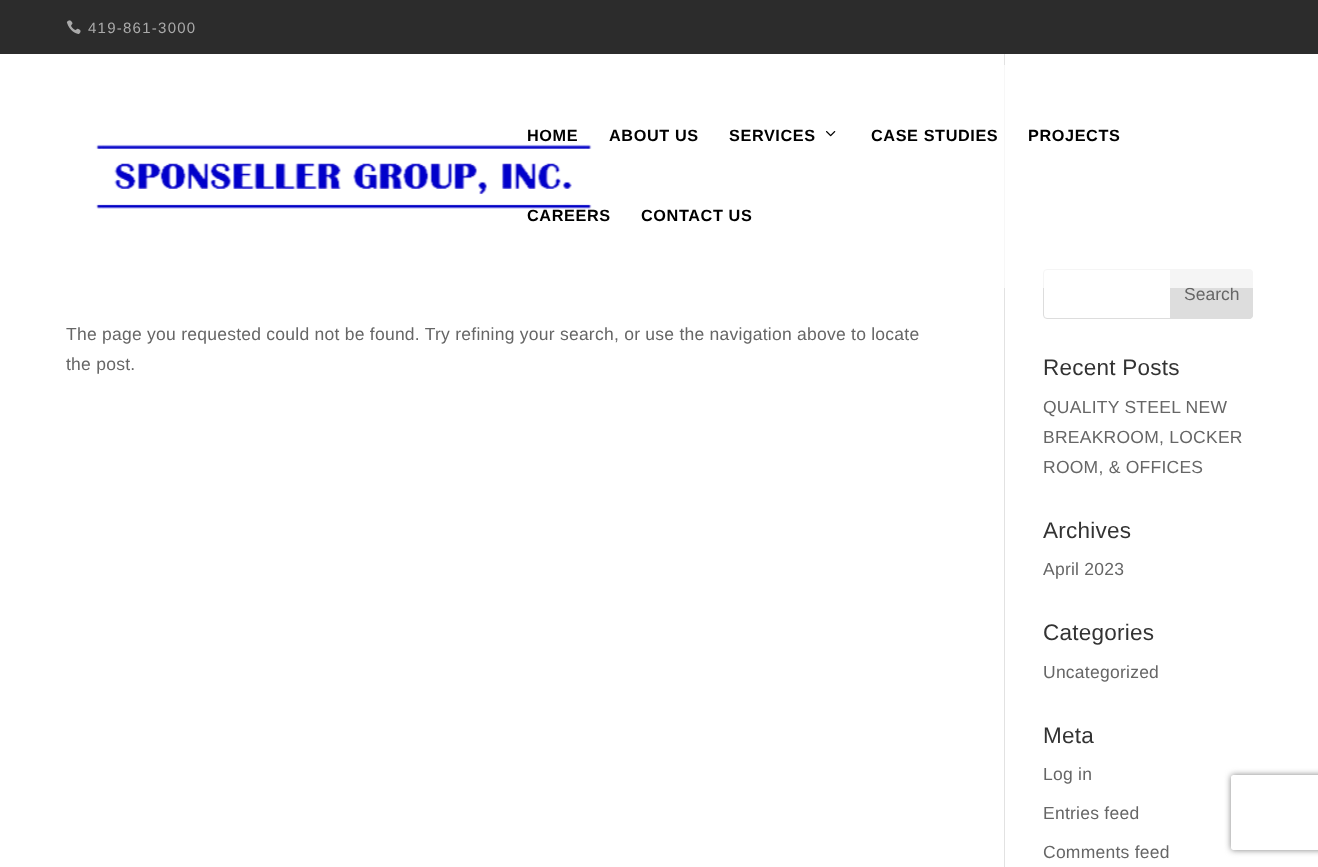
async function draw(canvas) {
  canvas.width = 1318;
  canvas.height = 867;
  const ctx = canvas.getContext('2d');
  ctx.miterLimit = 4;
  ctx.fontKerning = 'normal';
  function label(s, x, y, font, color) {
    ctx.font = font;
    ctx.fillStyle = color;
    ctx.fillText(s, x, y);
  }
  function rect(x, y, w, h, color) {
    ctx.fillStyle = color;
    ctx.fillRect(x, y, w, h);
  }
  async function image(src, x, y, w, h) {
    const img = new Image();
    img.src = src;
    await img.decode();
    ctx.drawImage(img, x, y, w, h);
  }
  let path;

  rect(0, 0, 1318, 867, '#fff');
  rect(0, 0, 1318, 54, '#2c2c2c');
  await image('assets/img1.png', 66, 20, 15, 14);
  ctx.letterSpacing = '1.25px';
  label('419-861-3000', 88, 33, '15px Liberation Sans', '#aaa');
  rect(1004, 54, 1, 813, '#e2e2e2');
  ctx.beginPath();
  ctx.roundRect(1043.5, 269.5, 209, 49, 3.5);
  ctx.strokeStyle = '#ddd';
  ctx.stroke();
  ctx.fillStyle = '#ddd';
  ctx.beginPath();
  ctx.roundRect(1170.5, 269.5, 82, 49, [0, 3.5, 3.5, 0]);
  ctx.fill();
  ctx.stroke();
  ctx.letterSpacing = '0px';
  label('Search', 1184, 300, '17.5px Liberation Sans', '#666');
  rect(1004, 65, 249, 223, '#ffffffb5');
  await image('assets/img2.png', 95, 144, 497, 65);
  ctx.letterSpacing = '0.6px';
  label('HOME', 527, 141, 'bold 16.25px Liberation Sans', '#000');
  label('ABOUT US', 609, 141, 'bold 16.25px Liberation Sans', '#000');
  label('SERVICES', 729, 141, 'bold 16.25px Liberation Sans', '#000');
  await image('assets/img3.png', 826, 131, 10, 6);
  label('CASE STUDIES', 871, 141, 'bold 16.25px Liberation Sans', '#000');
  label('PROJECTS', 1028, 141, 'bold 16.25px Liberation Sans', '#000');
  label('CAREERS', 527, 221, 'bold 16.25px Liberation Sans', '#000');
  label('CONTACT US', 641, 221, 'bold 16.25px Liberation Sans', '#000');
  ctx.letterSpacing = '0.25px';
  label('The page you requested could not be found. Try refining your search, or use the navigation above to locate', 66, 340, '17.5px Liberation Sans', '#666');
  label('the post.', 66, 370, '17.5px Liberation Sans', '#666');
  label('Recent Posts', 1043, 375, '22.5px Liberation Sans', '#333');
  label('QUALITY STEEL NEW', 1043, 413, '17.5px Liberation Sans', '#666');
  label('BREAKROOM, LOCKER', 1043, 443, '17.5px Liberation Sans', '#666');
  label('ROOM, & OFFICES', 1043, 473, '17.5px Liberation Sans', '#666');
  label('Archives', 1043, 538, '22.5px Liberation Sans', '#333');
  label('April 2023', 1043, 575, '17.5px Liberation Sans', '#666');
  label('Categories', 1043, 640, '22.5px Liberation Sans', '#333');
  label('Uncategorized', 1043, 678, '17.5px Liberation Sans', '#666');
  label('Meta', 1043, 743, '22.5px Liberation Sans', '#333');
  label('Log in', 1043, 780, '17.5px Liberation Sans', '#666');
  label('Entries feed', 1043, 819, '17.5px Liberation Sans', '#666');
  label('Comments feed', 1043, 858, '17.5px Liberation Sans', '#666');
  ctx.save();
  path = new Path2D('M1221 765H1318V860H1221ZM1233.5 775H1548.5C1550 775 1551 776 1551 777.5V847.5C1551 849 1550 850 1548.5 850H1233.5C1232 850 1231 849 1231 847.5V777.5C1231 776 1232 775 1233.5 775Z');
  ctx.clip(path, 'evenodd');
  ctx.fillStyle = '#808080';
  ctx.filter = 'blur(3px)';
  ctx.beginPath();
  ctx.roundRect(1231, 775, 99, 75, 2.5);
  ctx.fill();
  ctx.filter = 'none';
  ctx.restore();
}

draw(document.querySelector('canvas'));
